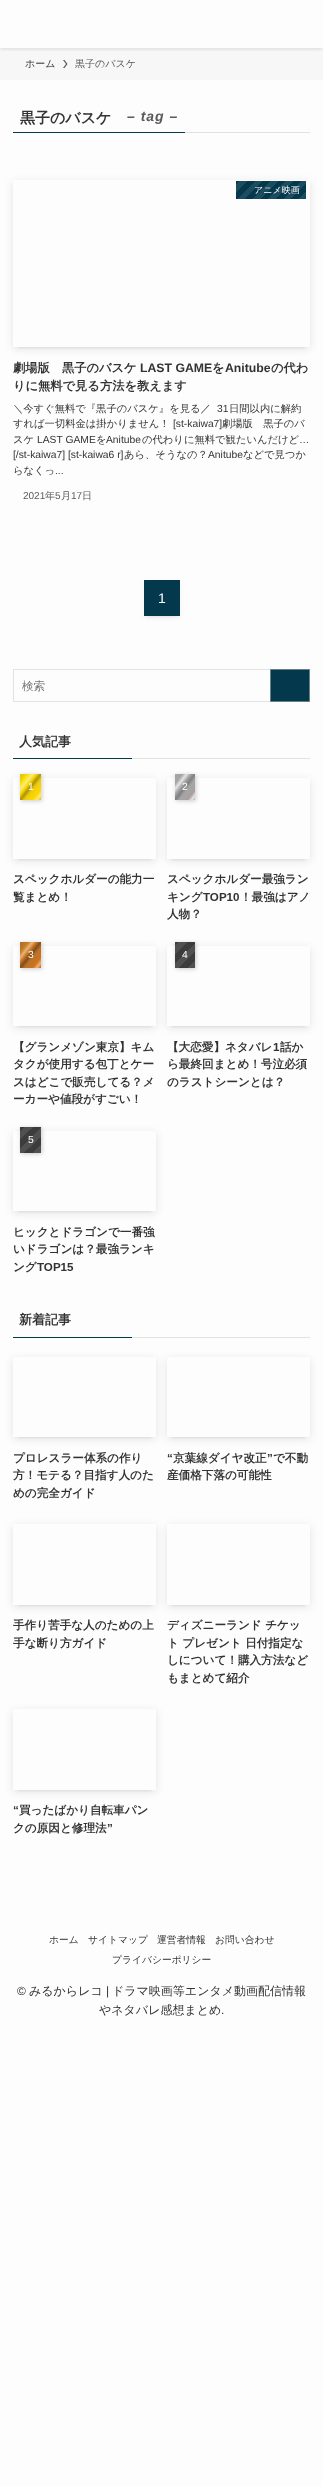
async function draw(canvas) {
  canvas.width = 323;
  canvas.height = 2487;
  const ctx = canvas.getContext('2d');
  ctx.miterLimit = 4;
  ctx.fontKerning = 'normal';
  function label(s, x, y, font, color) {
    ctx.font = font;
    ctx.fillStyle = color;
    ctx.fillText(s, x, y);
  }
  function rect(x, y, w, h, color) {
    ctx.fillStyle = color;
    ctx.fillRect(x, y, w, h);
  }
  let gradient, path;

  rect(0, 0, 323, 2487, '#fdfdfd');
  rect(0, 48, 323, 32, '#f7f7f7');
  ctx.save();
  ctx.beginPath();
  ctx.rect(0, 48, 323, 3);
  ctx.clip();
  ctx.fillStyle = '#0000001f';
  ctx.filter = 'blur(2px)';
  ctx.beginPath();
  ctx.rect(0, 1, 323, 48);
  ctx.fill();
  ctx.filter = 'none';
  ctx.restore();
  label('ホーム', 25, 67, '500 10px WenQuanYi Zen Hei', '#333');
  ctx.fillStyle = '#5a5a5a';
  path = new Path2D('M64.5 60H63L66 64L63 68H64.5L67.5 64Z');
  ctx.fill(path);
  label('黒子のバスケ', 75, 67, '500 10px WenQuanYi Zen Hei', '#5a5a5a');
  rect(185, 132, 125, 1, '#e2e2e2');
  rect(13, 132, 172, 1, '#04384c');
  label('黒子のバスケ', 20, 123, 'bold 15px WenQuanYi Zen Hei', '#333');
  ctx.letterSpacing = '1px';
  label('– tag –', 127, 121, 'italic bold 14px Liberation Sans', '#5a5a5a');
  ctx.save();
  ctx.beginPath();
  ctx.rect(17, 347, 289, 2);
  ctx.clip();
  ctx.fillStyle = '#0000001a';
  ctx.filter = 'blur(2px)';
  ctx.beginPath();
  ctx.rect(17, 188, 289, 159);
  ctx.fill();
  ctx.filter = 'none';
  ctx.restore();
  ctx.save();
  path = new Path2D('M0 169H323V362H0ZM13 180H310V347H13Z');
  ctx.clip(path, 'evenodd');
  ctx.fillStyle = '#0000001a';
  ctx.filter = 'blur(4px)';
  ctx.beginPath();
  ctx.rect(13, 182, 297, 167);
  ctx.fill();
  ctx.filter = 'none';
  ctx.restore();
  gradient = ctx.createLinearGradient(293, 212, 247, 166);
  gradient.addColorStop(0, '#1d4c5e');
  gradient.addColorStop(0.08, '#1d4c5e');
  gradient.addColorStop(0.08, '#04384c');
  gradient.addColorStop(0.17, '#04384c');
  gradient.addColorStop(0.17, '#1d4c5e');
  gradient.addColorStop(0.25, '#1d4c5e');
  gradient.addColorStop(0.25, '#04384c');
  gradient.addColorStop(0.33, '#04384c');
  gradient.addColorStop(0.33, '#1d4c5e');
  gradient.addColorStop(0.42, '#1d4c5e');
  gradient.addColorStop(0.42, '#04384c');
  gradient.addColorStop(0.5, '#04384c');
  gradient.addColorStop(0.5, '#1d4c5e');
  gradient.addColorStop(0.58, '#1d4c5e');
  gradient.addColorStop(0.58, '#04384c');
  gradient.addColorStop(0.67, '#04384c');
  gradient.addColorStop(0.67, '#1d4c5e');
  gradient.addColorStop(0.75, '#1d4c5e');
  gradient.addColorStop(0.75, '#04384c');
  gradient.addColorStop(0.83, '#04384c');
  gradient.addColorStop(0.83, '#1d4c5e');
  gradient.addColorStop(0.92, '#1d4c5e');
  gradient.addColorStop(0.92, '#04384c');
  gradient.addColorStop(1, '#04384c');
  ctx.fillStyle = gradient;
  ctx.fillRect(236, 181, 70, 18);
  ctx.letterSpacing = '0px';
  label('アニメ映画', 254, 193, '500 9px WenQuanYi Zen Hei', '#fff');
  label('劇場版　黒子のバスケ', 13, 372, 'bold 12.25px WenQuanYi Zen Hei', '#333');
  label('LAST GAME', 140, 372, 'bold 12.25px Liberation Sans', '#333');
  label('を', 212, 372, 'bold 12.25px WenQuanYi Zen Hei', '#333');
  label('Anitube', 225, 372, 'bold 12.25px Liberation Sans', '#333');
  label('の代わ', 271, 372, 'bold 12.25px WenQuanYi Zen Hei', '#333');
  label('りに無料で見る方法を教えます', 13, 390, 'bold 12.25px WenQuanYi Zen Hei', '#333');
  label('＼今すぐ無料で『黒子のバスケ』を見る／', 13, 412, '500 10.3px WenQuanYi Zen Hei', '#333');
  label('31', 217, 412, '10.3px Liberation Sans', '#333');
  label('日間以内に解約', 229, 412, '500 10.3px WenQuanYi Zen Hei', '#333');
  label('すれば一切料金は掛かりません！', 13, 427, '500 10.3px WenQuanYi Zen Hei', '#333');
  label('[st-kaiwa7]', 173, 427, '10.3px Liberation Sans', '#333');
  label('劇場版　黒子のバ', 222, 427, '500 10.3px WenQuanYi Zen Hei', '#333');
  label('スケ', 13, 443, '500 10.3px WenQuanYi Zen Hei', '#333');
  label('LAST GAME', 37, 443, '10.3px Liberation Sans', '#333');
  label('を', 96, 443, '500 10.3px WenQuanYi Zen Hei', '#333');
  label('Anitube', 106, 443, '10.3px Liberation Sans', '#333');
  label('の代わりに無料で観たいんだけど', 142, 443, '500 10.3px WenQuanYi Zen Hei', '#333');
  label('…', 299, 443, '10.3px Liberation Sans', '#333');
  label('[/st-kaiwa7] [st-kaiwa6 r]', 13, 458, '10.3px Liberation Sans', '#333');
  label('あら、そうなの？', 124, 458, '500 10.3px WenQuanYi Zen Hei', '#333');
  label('Anitube', 208, 458, '10.3px Liberation Sans', '#333');
  label('などで見つか', 243, 458, '500 10.3px WenQuanYi Zen Hei', '#333');
  label('らなくっ', 13, 474, '500 10.3px WenQuanYi Zen Hei', '#333');
  label('...', 55, 474, '10.3px Liberation Sans', '#333');
  label('2021', 23, 499, '10px Liberation Sans', '#5a5a5a');
  label('年', 45, 499, '500 10px WenQuanYi Zen Hei', '#5a5a5a');
  label('5', 55, 499, '10px Liberation Sans', '#5a5a5a');
  label('月', 61, 499, '500 10px WenQuanYi Zen Hei', '#5a5a5a');
  label('17', 71, 499, '10px Liberation Sans', '#5a5a5a');
  label('日', 82, 499, '500 10px WenQuanYi Zen Hei', '#5a5a5a');
  ctx.fillStyle = '#0000001a';
  ctx.filter = 'blur(2px)';
  ctx.beginPath();
  ctx.rect(148, 588, 28, 28);
  ctx.fill();
  ctx.filter = 'none';
  ctx.fillStyle = '#0000000d';
  ctx.filter = 'blur(2px)';
  ctx.beginPath();
  ctx.rect(144, 582, 36, 36);
  ctx.fill();
  ctx.filter = 'none';
  rect(144, 580, 36, 36, '#04384c');
  label('1', 158, 603, '14px Liberation Sans', '#fff');
  ctx.strokeStyle = '#e3e3e3';
  ctx.strokeRect(13.5, 669.5, 296, 32);
  label('検索', 22, 690, '500 11.6px WenQuanYi Zen Hei', '#757575');
  ctx.fillStyle = '#04384c';
  ctx.beginPath();
  ctx.rect(270.5, 669.5, 39, 32);
  ctx.fill();
  ctx.strokeStyle = '#66808a';
  ctx.stroke();
  label('人気記事', 19, 746, 'bold 13px WenQuanYi Zen Hei', '#333');
  rect(13, 758, 119, 1, '#04384c');
  rect(132, 758, 178, 1, '#e2e2e2');
  ctx.fillStyle = '#00000033';
  ctx.filter = 'blur(2px)';
  ctx.beginPath();
  ctx.rect(21, 775, 21, 26);
  ctx.fill();
  ctx.filter = 'none';
  ctx.save();
  ctx.beginPath();
  ctx.rect(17, 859, 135, 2);
  ctx.clip();
  ctx.fillStyle = '#0000001a';
  ctx.filter = 'blur(2px)';
  ctx.beginPath();
  ctx.rect(17, 786, 135, 73);
  ctx.fill();
  ctx.filter = 'none';
  ctx.restore();
  ctx.save();
  path = new Path2D('M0 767H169V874H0ZM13 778H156V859H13Z');
  ctx.clip(path, 'evenodd');
  ctx.fillStyle = '#0000001a';
  ctx.filter = 'blur(4px)';
  ctx.beginPath();
  ctx.rect(13, 780, 143, 81);
  ctx.fill();
  ctx.filter = 'none';
  ctx.restore();
  gradient = ctx.createLinearGradient(43, 797, 18, 777);
  gradient.addColorStop(0, '#f7bf05');
  gradient.addColorStop(0.1, '#fcea7f');
  gradient.addColorStop(0.2, '#fcd700');
  gradient.addColorStop(0.3, '#f7d305');
  gradient.addColorStop(0.4, '#eaca12');
  gradient.addColorStop(0.5, '#ac9303');
  gradient.addColorStop(0.6, '#f7d305');
  gradient.addColorStop(0.7, '#fcea7f');
  gradient.addColorStop(0.8, '#f7e705');
  gradient.addColorStop(0.9, '#eaca12');
  gradient.addColorStop(1, '#f7bf05');
  ctx.fillStyle = gradient;
  ctx.fillRect(20, 774, 21, 26);
  label('1', 28, 790, '10.3px Liberation Sans', '#fff');
  label('スペックホルダーの能力一', 13, 883, 'bold 11.6px WenQuanYi Zen Hei', '#333');
  label('覧まとめ！', 13, 901, 'bold 11.6px WenQuanYi Zen Hei', '#333');
  ctx.fillStyle = '#00000033';
  ctx.filter = 'blur(2px)';
  ctx.beginPath();
  ctx.rect(176, 775, 20, 26);
  ctx.fill();
  ctx.filter = 'none';
  ctx.save();
  ctx.beginPath();
  ctx.rect(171, 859, 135, 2);
  ctx.clip();
  ctx.fillStyle = '#0000001a';
  ctx.filter = 'blur(2px)';
  ctx.beginPath();
  ctx.rect(171, 786, 135, 73);
  ctx.fill();
  ctx.filter = 'none';
  ctx.restore();
  ctx.save();
  path = new Path2D('M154 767H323V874H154ZM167 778H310V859H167Z');
  ctx.clip(path, 'evenodd');
  ctx.fillStyle = '#0000001a';
  ctx.filter = 'blur(4px)';
  ctx.beginPath();
  ctx.rect(167, 780, 143, 81);
  ctx.fill();
  ctx.filter = 'none';
  ctx.restore();
  gradient = ctx.createLinearGradient(198, 797, 172, 777);
  gradient.addColorStop(0, '#a5a5a5');
  gradient.addColorStop(0.1, '#e5e5e5');
  gradient.addColorStop(0.2, '#ae9c9c');
  gradient.addColorStop(0.3, '#a5a5a5');
  gradient.addColorStop(0.4, '#a5a5a5');
  gradient.addColorStop(0.5, '#7f7f7f');
  gradient.addColorStop(0.6, '#a5a5a5');
  gradient.addColorStop(0.7, '#e5e5e5');
  gradient.addColorStop(0.8, '#a5a5a5');
  gradient.addColorStop(1, '#a5a5a5');
  ctx.fillStyle = gradient;
  ctx.fillRect(175, 774, 20, 26);
  label('2', 182, 790, '10.3px Liberation Sans', '#fff');
  label('スペックホルダー最強ラン', 167, 883, 'bold 11.6px WenQuanYi Zen Hei', '#333');
  label('キング', 167, 901, 'bold 11.6px WenQuanYi Zen Hei', '#333');
  label('TOP10', 203, 901, 'bold 11.6px Liberation Sans', '#333');
  label('！最強はアノ', 240, 901, 'bold 11.6px WenQuanYi Zen Hei', '#333');
  label('人物？', 167, 918, 'bold 11.6px WenQuanYi Zen Hei', '#333');
  ctx.fillStyle = '#00000033';
  ctx.filter = 'blur(2px)';
  ctx.beginPath();
  ctx.rect(21, 943, 21, 26);
  ctx.fill();
  ctx.filter = 'none';
  ctx.save();
  ctx.beginPath();
  ctx.rect(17, 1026, 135, 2);
  ctx.clip();
  ctx.fillStyle = '#0000001a';
  ctx.filter = 'blur(2px)';
  ctx.beginPath();
  ctx.rect(17, 954, 135, 72);
  ctx.fill();
  ctx.filter = 'none';
  ctx.restore();
  ctx.save();
  path = new Path2D('M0 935H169V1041H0ZM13 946H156V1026H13Z');
  ctx.clip(path, 'evenodd');
  ctx.fillStyle = '#0000001a';
  ctx.filter = 'blur(4px)';
  ctx.beginPath();
  ctx.rect(13, 948, 143, 80);
  ctx.fill();
  ctx.filter = 'none';
  ctx.restore();
  gradient = ctx.createLinearGradient(43, 965, 18, 945);
  gradient.addColorStop(0, '#c46522');
  gradient.addColorStop(0.1, '#e8b27d');
  gradient.addColorStop(0.2, '#d07217');
  gradient.addColorStop(0.3, '#c47222');
  gradient.addColorStop(0.4, '#b9722e');
  gradient.addColorStop(0.5, '#834c17');
  gradient.addColorStop(0.6, '#c47222');
  gradient.addColorStop(0.7, '#e8b27d');
  gradient.addColorStop(0.8, '#c48022');
  gradient.addColorStop(0.9, '#b9722e');
  gradient.addColorStop(1, '#c46522');
  ctx.fillStyle = gradient;
  ctx.fillRect(20, 942, 21, 26);
  label('3', 28, 958, '10.3px Liberation Sans', '#fff');
  label('【グランメゾン東京】キム', 13, 1051, 'bold 11.6px WenQuanYi Zen Hei', '#333');
  label('タクが使用する包丁とケー', 13, 1068, 'bold 11.6px WenQuanYi Zen Hei', '#333');
  label('スはどこで販売してる？メ', 13, 1086, 'bold 11.6px WenQuanYi Zen Hei', '#333');
  label('ーカーや値段がすごい！', 13, 1103, 'bold 11.6px WenQuanYi Zen Hei', '#333');
  ctx.fillStyle = '#00000033';
  ctx.filter = 'blur(2px)';
  ctx.beginPath();
  ctx.rect(176, 943, 20, 26);
  ctx.fill();
  ctx.filter = 'none';
  ctx.save();
  ctx.beginPath();
  ctx.rect(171, 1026, 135, 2);
  ctx.clip();
  ctx.fillStyle = '#0000001a';
  ctx.filter = 'blur(2px)';
  ctx.beginPath();
  ctx.rect(171, 954, 135, 72);
  ctx.fill();
  ctx.filter = 'none';
  ctx.restore();
  ctx.save();
  path = new Path2D('M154 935H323V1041H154ZM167 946H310V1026H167Z');
  ctx.clip(path, 'evenodd');
  ctx.fillStyle = '#0000001a';
  ctx.filter = 'blur(4px)';
  ctx.beginPath();
  ctx.rect(167, 948, 143, 80);
  ctx.fill();
  ctx.filter = 'none';
  ctx.restore();
  gradient = ctx.createLinearGradient(197, 967, 171, 941);
  gradient.addColorStop(0, '#505050');
  gradient.addColorStop(0.17, '#505050');
  gradient.addColorStop(0.17, '#3c3c3c');
  gradient.addColorStop(0.33, '#3c3c3c');
  gradient.addColorStop(0.33, '#505050');
  gradient.addColorStop(0.5, '#505050');
  gradient.addColorStop(0.5, '#3c3c3c');
  gradient.addColorStop(0.67, '#3c3c3c');
  gradient.addColorStop(0.67, '#505050');
  gradient.addColorStop(0.83, '#505050');
  gradient.addColorStop(0.83, '#3c3c3c');
  gradient.addColorStop(1, '#3c3c3c');
  ctx.fillStyle = gradient;
  ctx.fillRect(175, 942, 20, 26);
  label('4', 182, 958, '10.3px Liberation Sans', '#fff');
  label('【大恋愛】ネタバレ', 167, 1051, 'bold 11.6px WenQuanYi Zen Hei', '#333');
  label('1', 273, 1051, 'bold 11.6px Liberation Sans', '#333');
  label('話か', 280, 1051, 'bold 11.6px WenQuanYi Zen Hei', '#333');
  label('ら最終回まとめ！号泣必須', 167, 1068, 'bold 11.6px WenQuanYi Zen Hei', '#333');
  label('のラストシーンとは？', 167, 1086, 'bold 11.6px WenQuanYi Zen Hei', '#333');
  ctx.fillStyle = '#00000033';
  ctx.filter = 'blur(2px)';
  ctx.beginPath();
  ctx.rect(21, 1128, 21, 26);
  ctx.fill();
  ctx.filter = 'none';
  ctx.save();
  ctx.beginPath();
  ctx.rect(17, 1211, 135, 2);
  ctx.clip();
  ctx.fillStyle = '#0000001a';
  ctx.filter = 'blur(2px)';
  ctx.beginPath();
  ctx.rect(17, 1139, 135, 72);
  ctx.fill();
  ctx.filter = 'none';
  ctx.restore();
  ctx.save();
  path = new Path2D('M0 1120H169V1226H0ZM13 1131H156V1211H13Z');
  ctx.clip(path, 'evenodd');
  ctx.fillStyle = '#0000001a';
  ctx.filter = 'blur(4px)';
  ctx.beginPath();
  ctx.rect(13, 1133, 143, 80);
  ctx.fill();
  ctx.filter = 'none';
  ctx.restore();
  gradient = ctx.createLinearGradient(42, 1152, 17, 1126);
  gradient.addColorStop(0, '#505050');
  gradient.addColorStop(0.17, '#505050');
  gradient.addColorStop(0.17, '#3c3c3c');
  gradient.addColorStop(0.33, '#3c3c3c');
  gradient.addColorStop(0.33, '#505050');
  gradient.addColorStop(0.5, '#505050');
  gradient.addColorStop(0.5, '#3c3c3c');
  gradient.addColorStop(0.67, '#3c3c3c');
  gradient.addColorStop(0.67, '#505050');
  gradient.addColorStop(0.83, '#505050');
  gradient.addColorStop(0.83, '#3c3c3c');
  gradient.addColorStop(1, '#3c3c3c');
  ctx.fillStyle = gradient;
  ctx.fillRect(20, 1127, 21, 26);
  label('5', 28, 1143, '10.3px Liberation Sans', '#fff');
  label('ヒックとドラゴンで一番強', 13, 1236, 'bold 11.6px WenQuanYi Zen Hei', '#333');
  label('いドラゴンは？最強ランキ', 13, 1253, 'bold 11.6px WenQuanYi Zen Hei', '#333');
  label('ング', 13, 1271, 'bold 11.6px WenQuanYi Zen Hei', '#333');
  label('TOP15', 37, 1271, 'bold 11.6px Liberation Sans', '#333');
  label('新着記事', 19, 1324, 'bold 13px WenQuanYi Zen Hei', '#333');
  rect(13, 1337, 119, 1, '#04384c');
  rect(132, 1337, 178, 1, '#e2e2e2');
  ctx.save();
  ctx.beginPath();
  ctx.rect(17, 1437, 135, 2);
  ctx.clip();
  ctx.fillStyle = '#0000001a';
  ctx.filter = 'blur(2px)';
  ctx.beginPath();
  ctx.rect(17, 1365, 135, 72);
  ctx.fill();
  ctx.filter = 'none';
  ctx.restore();
  ctx.save();
  path = new Path2D('M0 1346H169V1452H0ZM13 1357H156V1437H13Z');
  ctx.clip(path, 'evenodd');
  ctx.fillStyle = '#0000001a';
  ctx.filter = 'blur(4px)';
  ctx.beginPath();
  ctx.rect(13, 1359, 143, 80);
  ctx.fill();
  ctx.filter = 'none';
  ctx.restore();
  label('プロレスラー体系の作り', 13, 1462, 'bold 11.6px WenQuanYi Zen Hei', '#333');
  label('方！モテる？目指す人のた', 13, 1479, 'bold 11.6px WenQuanYi Zen Hei', '#333');
  label('めの完全ガイド', 13, 1497, 'bold 11.6px WenQuanYi Zen Hei', '#333');
  ctx.save();
  ctx.beginPath();
  ctx.rect(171, 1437, 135, 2);
  ctx.clip();
  ctx.fillStyle = '#0000001a';
  ctx.filter = 'blur(2px)';
  ctx.beginPath();
  ctx.rect(171, 1365, 135, 72);
  ctx.fill();
  ctx.filter = 'none';
  ctx.restore();
  ctx.save();
  path = new Path2D('M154 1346H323V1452H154ZM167 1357H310V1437H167Z');
  ctx.clip(path, 'evenodd');
  ctx.fillStyle = '#0000001a';
  ctx.filter = 'blur(4px)';
  ctx.beginPath();
  ctx.rect(167, 1359, 143, 80);
  ctx.fill();
  ctx.filter = 'none';
  ctx.restore();
  label('“', 167, 1462, 'bold 11.6px Liberation Sans', '#333');
  label('京葉線ダイヤ改正', 173, 1462, 'bold 11.6px WenQuanYi Zen Hei', '#333');
  label('”', 267, 1462, 'bold 11.6px Liberation Sans', '#333');
  label('で不動', 273, 1462, 'bold 11.6px WenQuanYi Zen Hei', '#333');
  label('産価格下落の可能性', 167, 1479, 'bold 11.6px WenQuanYi Zen Hei', '#333');
  ctx.save();
  ctx.beginPath();
  ctx.rect(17, 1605, 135, 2);
  ctx.clip();
  ctx.fillStyle = '#0000001a';
  ctx.filter = 'blur(2px)';
  ctx.beginPath();
  ctx.rect(17, 1532, 135, 73);
  ctx.fill();
  ctx.filter = 'none';
  ctx.restore();
  ctx.save();
  path = new Path2D('M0 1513H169V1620H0ZM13 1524H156V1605H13Z');
  ctx.clip(path, 'evenodd');
  ctx.fillStyle = '#0000001a';
  ctx.filter = 'blur(4px)';
  ctx.beginPath();
  ctx.rect(13, 1526, 143, 81);
  ctx.fill();
  ctx.filter = 'none';
  ctx.restore();
  label('手作り苦手な人のための上', 13, 1629, 'bold 11.6px WenQuanYi Zen Hei', '#333');
  label('手な断り方ガイド', 13, 1647, 'bold 11.6px WenQuanYi Zen Hei', '#333');
  ctx.save();
  ctx.beginPath();
  ctx.rect(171, 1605, 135, 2);
  ctx.clip();
  ctx.fillStyle = '#0000001a';
  ctx.filter = 'blur(2px)';
  ctx.beginPath();
  ctx.rect(171, 1532, 135, 73);
  ctx.fill();
  ctx.filter = 'none';
  ctx.restore();
  ctx.save();
  path = new Path2D('M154 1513H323V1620H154ZM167 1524H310V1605H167Z');
  ctx.clip(path, 'evenodd');
  ctx.fillStyle = '#0000001a';
  ctx.filter = 'blur(4px)';
  ctx.beginPath();
  ctx.rect(167, 1526, 143, 81);
  ctx.fill();
  ctx.filter = 'none';
  ctx.restore();
  label('ディズニーランド チケッ', 167, 1629, 'bold 11.6px WenQuanYi Zen Hei', '#333');
  label('ト プレゼント 日付指定な', 167, 1647, 'bold 11.6px WenQuanYi Zen Hei', '#333');
  label('しについて！購入方法など', 167, 1664, 'bold 11.6px WenQuanYi Zen Hei', '#333');
  label('もまとめて紹介', 167, 1682, 'bold 11.6px WenQuanYi Zen Hei', '#333');
  ctx.save();
  ctx.beginPath();
  ctx.rect(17, 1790, 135, 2);
  ctx.clip();
  ctx.fillStyle = '#0000001a';
  ctx.filter = 'blur(2px)';
  ctx.beginPath();
  ctx.rect(17, 1717, 135, 73);
  ctx.fill();
  ctx.filter = 'none';
  ctx.restore();
  ctx.save();
  path = new Path2D('M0 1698H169V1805H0ZM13 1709H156V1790H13Z');
  ctx.clip(path, 'evenodd');
  ctx.fillStyle = '#0000001a';
  ctx.filter = 'blur(4px)';
  ctx.beginPath();
  ctx.rect(13, 1711, 143, 81);
  ctx.fill();
  ctx.filter = 'none';
  ctx.restore();
  label('“', 13, 1814, 'bold 11.6px Liberation Sans', '#333');
  label('買ったばかり自転車パン', 19, 1814, 'bold 11.6px WenQuanYi Zen Hei', '#333');
  label('クの原因と修理法', 13, 1832, 'bold 11.6px WenQuanYi Zen Hei', '#333');
  label('”', 107, 1832, 'bold 11.6px Liberation Sans', '#333');
  label('ホーム', 49, 1943, '500 9.75px WenQuanYi Zen Hei', '#333');
  label('サイトマップ', 88, 1943, '500 9.75px WenQuanYi Zen Hei', '#333');
  label('運営者情報', 157, 1943, '500 9.75px WenQuanYi Zen Hei', '#333');
  label('お問い合わせ', 215, 1943, '500 9.75px WenQuanYi Zen Hei', '#333');
  label('プライバシーポリシー', 112, 1963, '500 9.75px WenQuanYi Zen Hei', '#333');
  label('©', 17, 1995, '12px Liberation Sans', '#333');
  label('みるからレコ', 29, 1995, '500 12px WenQuanYi Zen Hei', '#333');
  label('|', 106, 1995, '12px Liberation Sans', '#333');
  label('ドラマ映画等エンタメ動画配信情報', 112, 1995, '500 12px WenQuanYi Zen Hei', '#333');
  label('やネタバレ感想まとめ', 99, 2014, '500 12px WenQuanYi Zen Hei', '#333');
  label('.', 221, 2014, '12px Liberation Sans', '#333');
}

draw(document.querySelector('canvas'));
